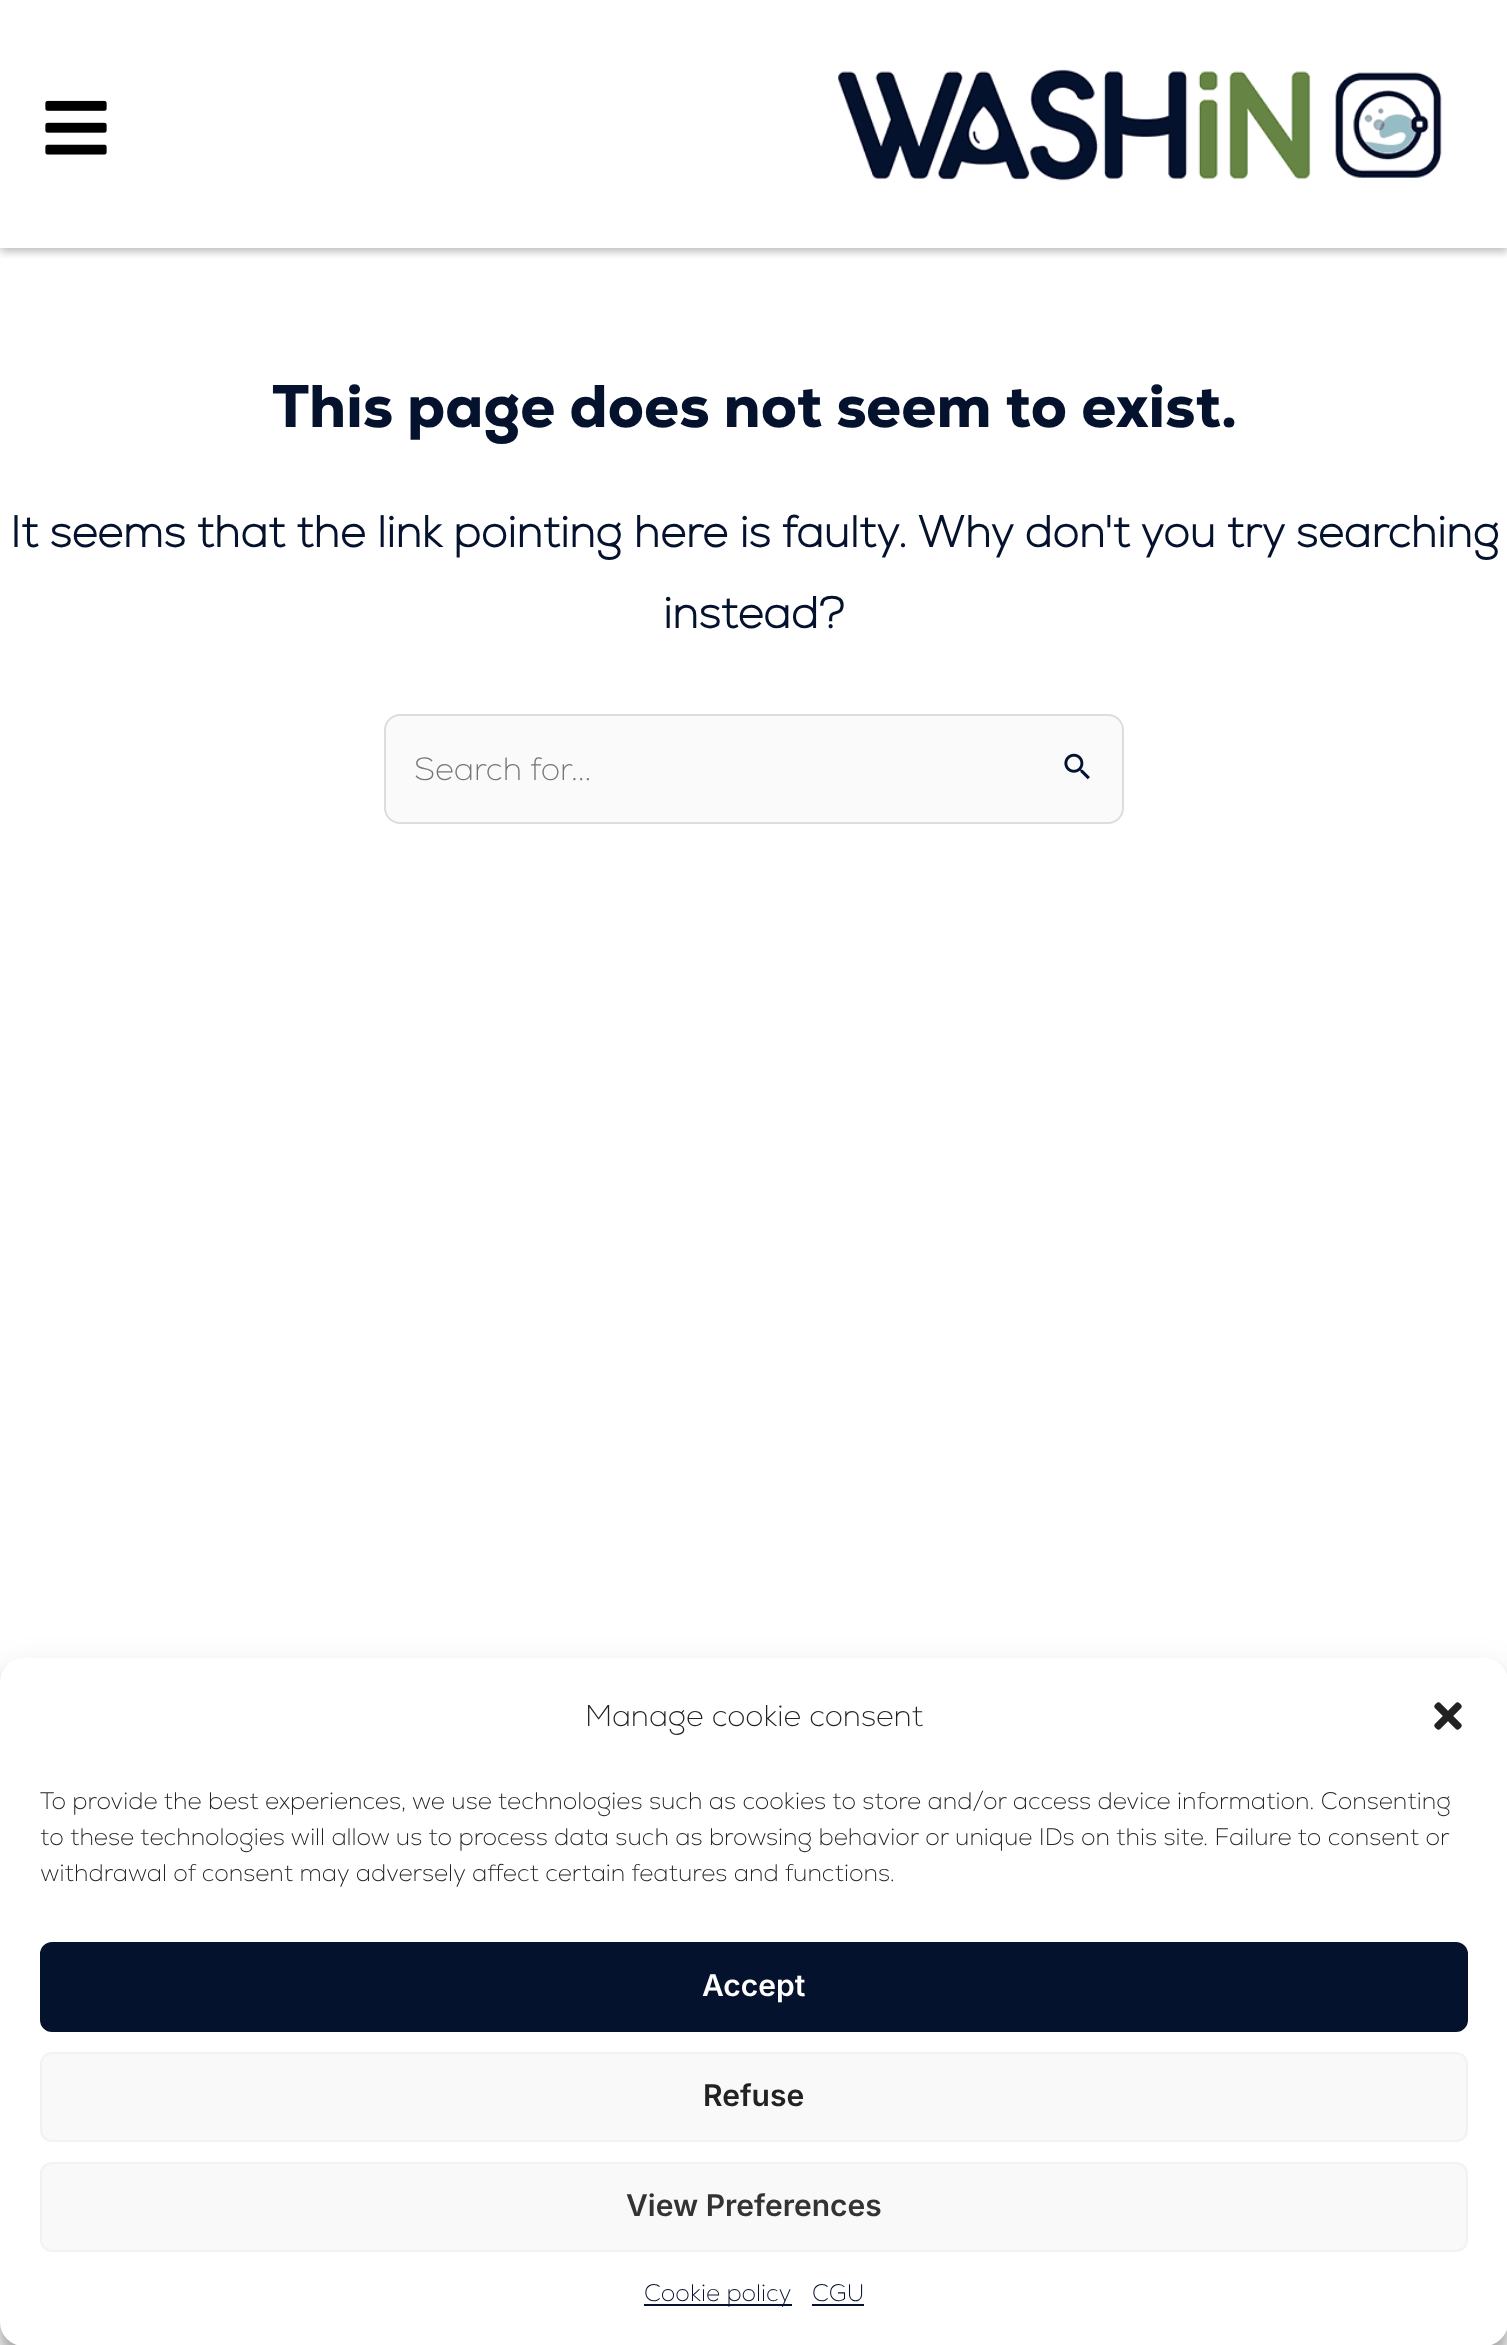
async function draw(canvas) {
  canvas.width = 1507;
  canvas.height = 2345;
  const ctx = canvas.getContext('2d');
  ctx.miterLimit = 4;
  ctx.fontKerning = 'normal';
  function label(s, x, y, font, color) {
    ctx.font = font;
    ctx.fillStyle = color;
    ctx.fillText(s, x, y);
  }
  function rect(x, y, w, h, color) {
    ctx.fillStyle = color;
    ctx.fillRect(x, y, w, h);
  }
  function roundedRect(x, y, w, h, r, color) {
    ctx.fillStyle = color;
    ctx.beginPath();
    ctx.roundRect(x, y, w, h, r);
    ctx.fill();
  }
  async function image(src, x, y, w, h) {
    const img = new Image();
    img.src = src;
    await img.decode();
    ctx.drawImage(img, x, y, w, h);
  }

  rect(0, 0, 1507, 2345, '#fff');
  ctx.save();
  ctx.beginPath();
  ctx.rect(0, 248, 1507, 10);
  ctx.clip();
  ctx.fillStyle = '#00000040';
  ctx.filter = 'blur(4px)';
  ctx.beginPath();
  ctx.rect(0, 4, 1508, 248);
  ctx.fill();
  ctx.filter = 'none';
  ctx.restore();
  await image('assets/img1.png', 45, 100, 62, 55);
  await image('assets/img2.png', 838, 69, 604, 112);
  label('This page does not seem to exist.', 272, 427, '900 60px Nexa', '#05122e');
  label('It seems that the link pointing here is faulty. Why don\'t you try searching', 10, 547, 'bold 43.8px Nexa', '#05122e');
  label('instead?', 663, 628, 'bold 43.8px Nexa', '#05122e');
  ctx.fillStyle = '#fafafa';
  ctx.beginPath();
  ctx.roundRect(385, 715, 738, 108, 15);
  ctx.fill();
  ctx.strokeStyle = '#ddd';
  ctx.lineWidth = 2;
  ctx.stroke();
  label('Search for...', 414, 780, '200 32px Nexa', '#757575');
  await image('assets/img3.png', 1064, 753, 26, 27);
  ctx.fillStyle = '#0000003b';
  ctx.filter = 'blur(6px)';
  ctx.beginPath();
  ctx.roundRect(0, 1670, 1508, 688, 24);
  ctx.fill();
  ctx.filter = 'none';
  ctx.fillStyle = '#00000030';
  ctx.filter = 'blur(20px)';
  ctx.beginPath();
  ctx.roundRect(0, 1678, 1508, 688, 24);
  ctx.fill();
  ctx.filter = 'none';
  roundedRect(0, 1658, 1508, 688, 24, '#fff');
  label('Manage cookie consent', 585, 1726, '200 30px Nexa', '#222');
  await image('assets/img4.png', 1434, 1702, 28, 28);
  label('To provide the best experiences, we use technologies such as cookies to store and/or access device information. Consenting', 40, 1809, '200 24px Nexa', '#222');
  label('to these technologies will allow us to process data such as browsing behavior or unique IDs on this site. Failure to consent or', 40, 1845, '200 24px Nexa', '#222');
  label('withdrawal of consent may adversely affect certain features and functions.', 40, 1881, '200 24px Nexa', '#222');
  ctx.fillStyle = '#05122e';
  ctx.beginPath();
  ctx.roundRect(41, 1943, 1426, 88, 11);
  ctx.fill();
  ctx.strokeStyle = '#05122e';
  ctx.stroke();
  label('Accept', 702, 1996, '600 30px Inter', '#fff');
  ctx.fillStyle = '#f9f9f9';
  ctx.beginPath();
  ctx.roundRect(41, 2053, 1426, 88, 11);
  ctx.fill();
  ctx.strokeStyle = '#f2f2f2';
  ctx.stroke();
  label('Refuse', 703, 2106, '600 30px Inter', '#222');
  ctx.fillStyle = '#f9f9f9';
  ctx.beginPath();
  ctx.roundRect(41, 2163, 1426, 88, 11);
  ctx.fill();
  ctx.stroke();
  label('View Preferences', 626, 2216, '600 30px Inter', '#333');
  rect(644, 2304, 148, 2, '#05122e');
  label('Cookie policy', 644, 2301, '200 24px Nexa', '#05122e');
  label('CGU', 812, 2301, '200 24px Nexa', '#05122e');
  rect(812, 2304, 52, 2, '#05122e');
}

draw(document.querySelector('canvas'));
